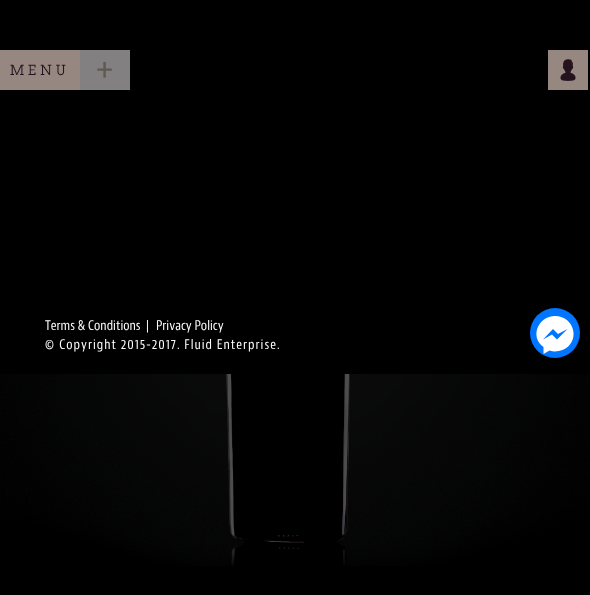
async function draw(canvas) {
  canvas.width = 590;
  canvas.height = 595;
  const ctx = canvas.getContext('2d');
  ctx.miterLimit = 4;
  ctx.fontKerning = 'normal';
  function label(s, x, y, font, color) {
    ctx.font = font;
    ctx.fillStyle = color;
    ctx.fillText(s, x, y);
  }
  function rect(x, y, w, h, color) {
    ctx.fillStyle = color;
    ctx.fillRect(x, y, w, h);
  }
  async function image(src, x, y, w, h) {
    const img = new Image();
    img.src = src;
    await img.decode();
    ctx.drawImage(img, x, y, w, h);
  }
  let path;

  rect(0, 0, 590, 595, '#000');
  rect(0, 50, 80, 40, '#968880');
  ctx.letterSpacing = '4px';
  label('MENU', 10, 75, '13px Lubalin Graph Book', '#24131d');
  rect(80, 50, 50, 40, '#828080');
  ctx.letterSpacing = '0px';
  label('+', 95, 80, '35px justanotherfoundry', '#605852');
  rect(548, 50, 40, 40, '#968880');
  await image('assets/img1.png', 560, 59, 16, 22);
  label('Terms & Conditions', 45, 330, '13px justanotherfoundry', '#fff');
  label('|', 146, 330, '13px justanotherfoundry', '#fff');
  label('Privacy Policy', 156, 330, '13px justanotherfoundry', '#fff');
  ctx.letterSpacing = '1px';
  label('© Copyright 2015-2017. Fluid Enterprise.', 45, 349, '13px justanotherfoundry', '#fff');
  await image('assets/img2.png', 0, 374, 590, 192);
  ctx.fillStyle = '#0075ff';
  ctx.beginPath();
  ctx.arc(555, 333, 25, 0, 2 * Math.PI);
  ctx.fill();
  ctx.fillStyle = '#fff';
  path = new Path2D('M555 316C538 316 529.5 337 543.5 347V354L549.5 350.5C553.5 352 558.5 351.5 562.5 350C581 342.5 575 316 555 316ZM557 339.5L552 334.5L543 339.5L553 329L558 334L567.5 329Z');
  ctx.fill(path);
}

draw(document.querySelector('canvas'));
